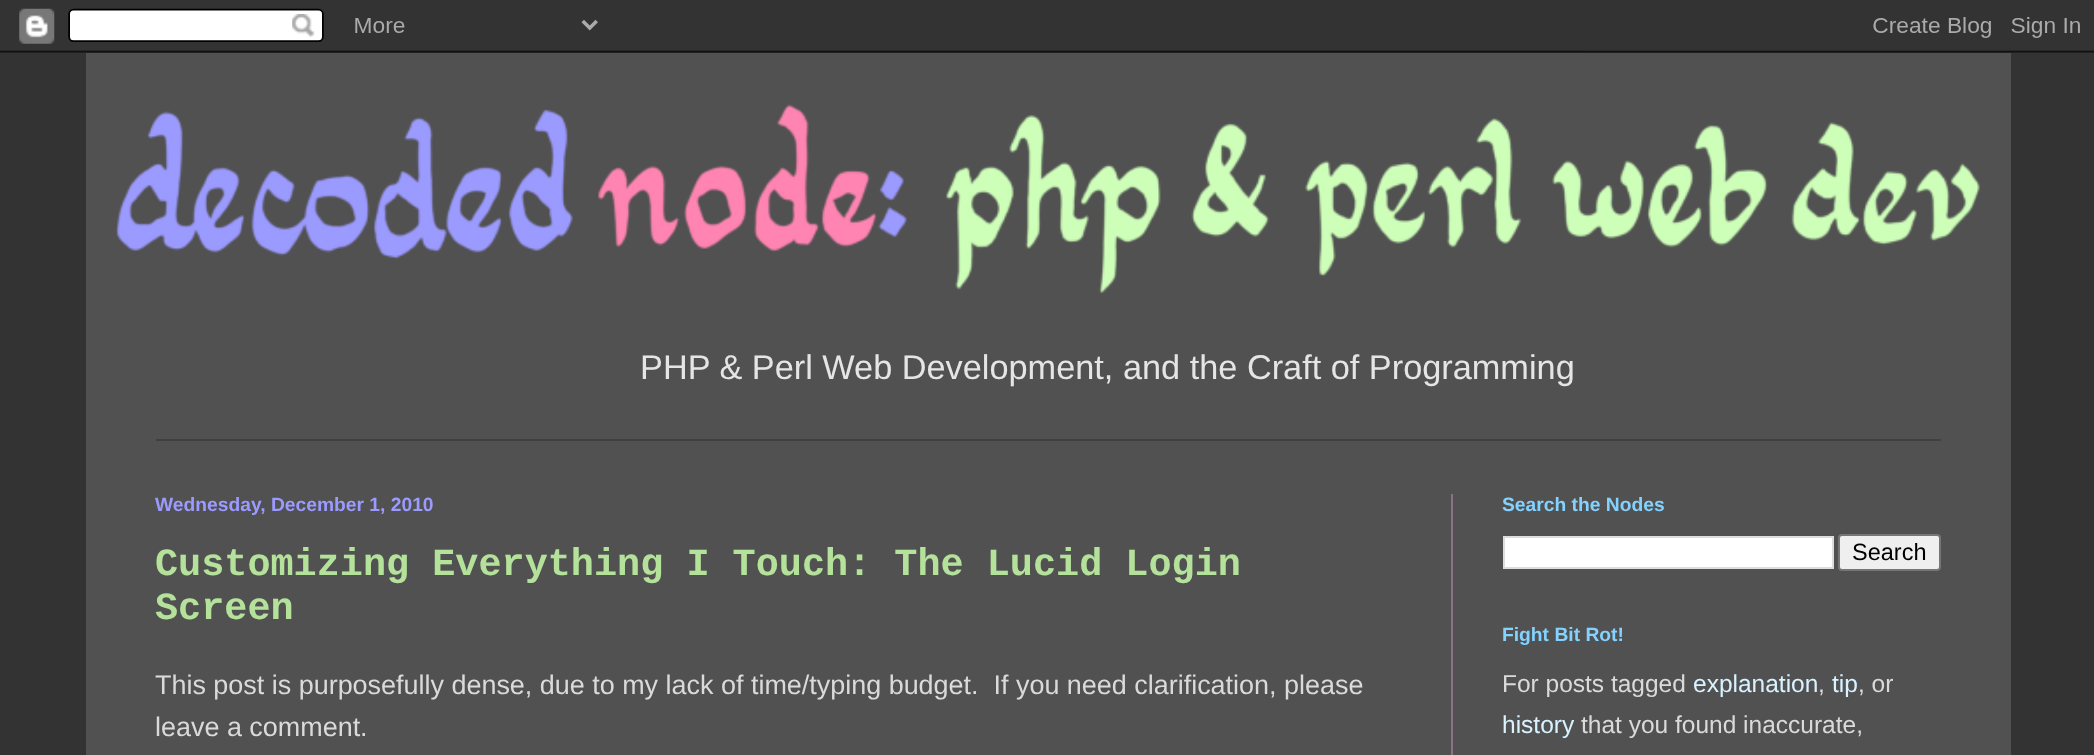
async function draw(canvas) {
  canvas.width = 2094;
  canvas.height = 755;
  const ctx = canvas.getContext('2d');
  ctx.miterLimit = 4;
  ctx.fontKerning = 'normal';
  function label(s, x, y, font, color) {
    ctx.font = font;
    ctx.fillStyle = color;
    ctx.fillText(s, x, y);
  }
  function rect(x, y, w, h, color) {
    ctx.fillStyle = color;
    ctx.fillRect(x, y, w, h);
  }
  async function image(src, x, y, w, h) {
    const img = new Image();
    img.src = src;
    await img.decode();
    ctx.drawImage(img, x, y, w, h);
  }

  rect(0, 0, 2094, 755, '#333');
  await image('assets/img1.png', 0, 8, 2094, 45);
  rect(86, 53, 1925, 702, '#515151');
  await image('assets/img2.png', 115, 104, 1865, 190);
  label('PHP & Perl Web Development, and the Craft of Programming', 640, 379, '34.3px Liberation Sans', '#e5e5e5');
  rect(156, 439, 1785, 2, '#404040');
  rect(1451, 494, 2, 261, '#8a7184');
  label('Wednesday, December 1, 2010', 155, 511, 'bold 19.25px Liberation Sans', '#9b9aff');
  label('Customizing Everything I Touch: The Lucid Login', 155, 575, 'bold 38.5px Liberation Mono', '#b5e29b');
  label('Screen', 155, 619, 'bold 38.5px Liberation Mono', '#b5e29b');
  label('This post is purposefully dense, due to my lack of time/typing budget.  If you need clarification, please', 155, 694, '26.95px Liberation Sans', '#dadada');
  label('leave a comment.', 155, 736, '26.95px Liberation Sans', '#dadada');
  label('Search the Nodes', 1502, 511, 'bold 19.25px Liberation Sans', '#83d2ff');
  ctx.fillStyle = '#fff';
  ctx.beginPath();
  ctx.rect(1504, 537, 329, 31);
  ctx.fill();
  ctx.strokeStyle = '#ddd';
  ctx.lineWidth = 2;
  ctx.stroke();
  ctx.fillStyle = '#efefef';
  ctx.beginPath();
  ctx.roundRect(1839, 535, 101, 35, 3);
  ctx.fill();
  ctx.strokeStyle = '#767676';
  ctx.stroke();
  label('Search', 1852, 560, '23.5px Liberation Sans', '#000');
  label('Fight Bit Rot!', 1502, 641, 'bold 19.25px Liberation Sans', '#83d2ff');
  label('For posts tagged', 1502, 692, '24.5px Liberation Sans', '#dadada');
  label('explanation', 1693, 692, '24.5px Liberation Sans', '#d8f2ff');
  label(',', 1818, 692, '24.5px Liberation Sans', '#dadada');
  label('tip', 1832, 692, '24.5px Liberation Sans', '#d8f2ff');
  label(', or', 1858, 692, '24.5px Liberation Sans', '#dadada');
  label('history', 1502, 733, '24.5px Liberation Sans', '#d8f2ff');
  label('that you found inaccurate,', 1581, 733, '24.5px Liberation Sans', '#dadada');
}

draw(document.querySelector('canvas'));
